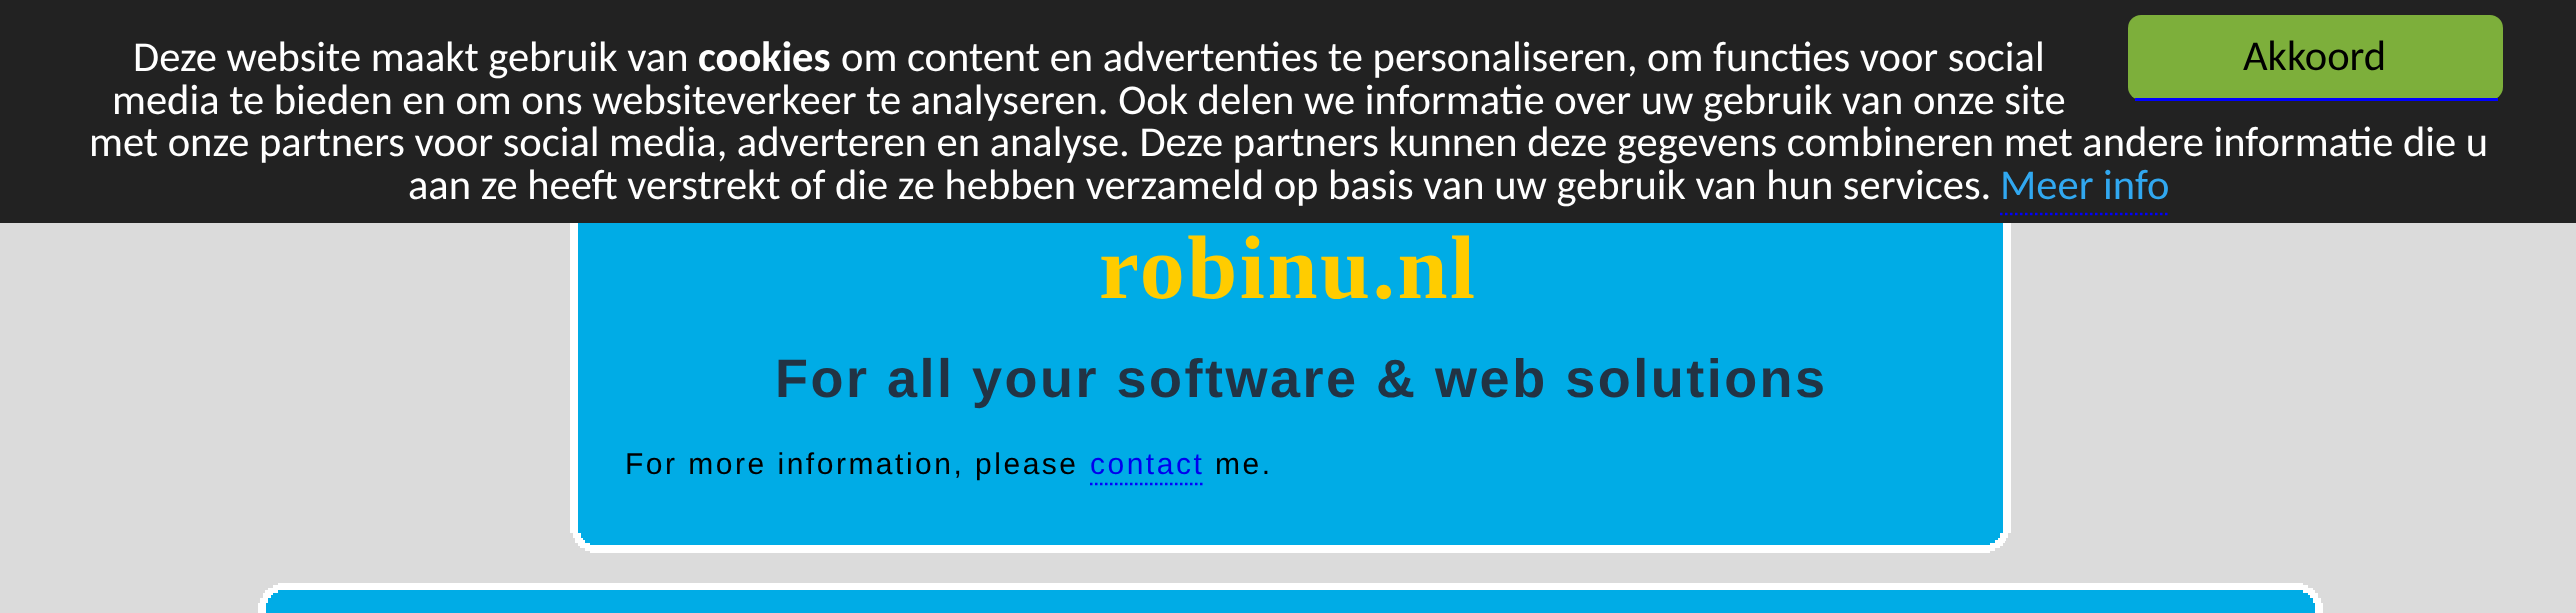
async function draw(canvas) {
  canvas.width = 2576;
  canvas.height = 613;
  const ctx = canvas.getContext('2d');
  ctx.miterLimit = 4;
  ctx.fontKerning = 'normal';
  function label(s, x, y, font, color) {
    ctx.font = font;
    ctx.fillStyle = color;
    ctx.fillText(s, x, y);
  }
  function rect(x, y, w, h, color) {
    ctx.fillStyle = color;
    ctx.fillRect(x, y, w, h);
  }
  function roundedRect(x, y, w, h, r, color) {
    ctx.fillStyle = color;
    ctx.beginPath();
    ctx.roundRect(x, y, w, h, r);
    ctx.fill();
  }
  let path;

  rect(0, 0, 2576, 613, '#dbdbdb');
  rect(2003, 215, 8, 318, '#fff');
  rect(570, 215, 8, 318, '#fff');
  rect(0, 0, 2576, 223, '#222');
  roundedRect(2128, 15, 375, 85, 13, '#7daf3b');
  rect(2135, 98, 363, 3, '#00f');
  label('Akkoord', 2243, 70, '42.5px Carlito', '#000');
  label('Deze website maakt gebruik van', 133, 71, '42.5px Carlito', '#fff');
  label('cookies', 698, 71, 'bold 42.5px Carlito', '#fff');
  label('om content en advertenties te personaliseren, om functies voor social', 841, 71, '42.5px Carlito', '#fff');
  label('media te bieden en om ons websiteverkeer te analyseren. Ook delen we informatie over uw gebruik van onze site', 112, 114, '42.5px Carlito', '#fff');
  label('met onze partners voor social media, adverteren en analyse. Deze partners kunnen deze gegevens combineren met andere informatie die u', 89, 156, '42.5px Carlito', '#fff');
  label('aan ze heeft verstrekt of die ze hebben verzameld op basis van uw gebruik van hun services.', 408, 199, '42.5px Carlito', '#fff');
  label('Meer info', 2000, 199, '42.5px Carlito', '#31a8f0');
  path = new Path2D('M2000 214H2170');
  ctx.strokeStyle = '#00f';
  ctx.lineWidth = 2.5;
  ctx.setLineDash([2.5, 2.5]);
  ctx.stroke(path);
  rect(578, 223, 1425, 310, '#00ace6');
  ctx.letterSpacing = '2.5px';
  label('robinu.nl', 1099, 298, 'bold 90px Liberation Serif', '#fc0');
  label('For all your software & web solutions', 775, 397, 'bold 54px Liberation Sans', '#234');
  label('For more information, please', 625, 474, '30px Liberation Sans', '#000');
  label('contact', 1090, 474, '30px Liberation Sans', '#00e');
  path = new Path2D('M1090 484H1205');
  ctx.stroke(path);
  label('me.', 1215, 474, '30px Liberation Sans', '#000');
  rect(573, 533, 1435, 5, '#00ace6');
  rect(2000, 533, 8, 5, '#fff');
  rect(573, 533, 8, 5, '#fff');
  rect(575, 538, 1430, 2, '#00ace6');
  rect(1998, 538, 8, 3, '#fff');
  rect(575, 538, 8, 2, '#fff');
  rect(585, 540, 1410, 3, '#00ace6');
  rect(1995, 540, 10, 3, '#fff');
  rect(575, 540, 10, 3, '#fff');
  rect(590, 543, 1400, 2, '#00ace6');
  rect(1990, 543, 13, 3, '#fff');
  rect(578, 543, 12, 3, '#fff');
  rect(580, 545, 1420, 3, '#fff');
  rect(585, 548, 1410, 3, '#fff');
  rect(590, 551, 1400, 2, '#fff');
  rect(278, 583, 2025, 2, '#fff');
  rect(273, 585, 2035, 3, '#fff');
  rect(268, 588, 2045, 2, '#fff');
  rect(278, 590, 2025, 3, '#00ace6');
  rect(2303, 590, 12, 3, '#fff');
  rect(265, 590, 13, 3, '#fff');
  rect(273, 593, 2035, 2, '#00ace6');
  rect(2308, 593, 10, 2, '#fff');
  rect(263, 593, 10, 2, '#fff');
  rect(263, 595, 2055, 3, '#00ace6');
  rect(2310, 595, 8, 3, '#fff');
  rect(263, 595, 8, 3, '#fff');
  rect(260, 598, 2060, 5, '#00ace6');
  rect(2313, 598, 8, 5, '#fff');
  rect(260, 598, 8, 5, '#fff');
  rect(266, 603, 2049, 10, '#00ace6');
  rect(2315, 603, 8, 10, '#fff');
  rect(258, 603, 8, 10, '#fff');
}

draw(document.querySelector('canvas'));
